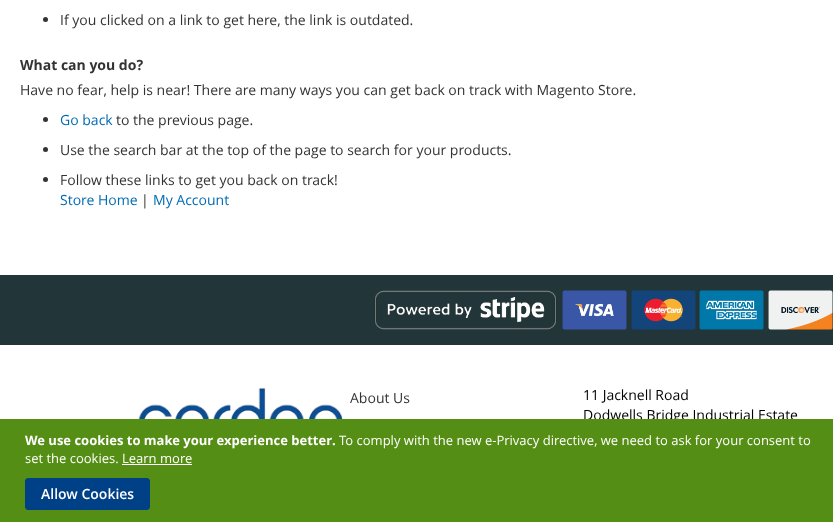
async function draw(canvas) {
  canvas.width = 833;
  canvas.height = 522;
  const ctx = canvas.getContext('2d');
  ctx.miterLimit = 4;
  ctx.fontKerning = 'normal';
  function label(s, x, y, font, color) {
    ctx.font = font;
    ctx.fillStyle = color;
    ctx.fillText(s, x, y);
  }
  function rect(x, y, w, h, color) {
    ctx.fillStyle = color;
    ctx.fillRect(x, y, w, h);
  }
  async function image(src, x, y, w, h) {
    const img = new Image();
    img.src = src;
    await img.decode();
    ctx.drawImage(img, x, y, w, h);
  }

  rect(0, 0, 833, 522, '#fff');
  ctx.fillStyle = '#333';
  ctx.beginPath();
  ctx.arc(45.5, 19.5, 2.5, 0, 2 * Math.PI);
  ctx.fill();
  label('If you clicked on a link to get here, the link is outdated.', 60, 25, '14px Open Sans', '#333');
  label('What can you do?', 20, 70, 'bold 14px Open Sans', '#333');
  label('Have no fear, help is near! There are many ways you can get back on track with Magento Store.', 20, 95, '14px Open Sans', '#333');
  ctx.beginPath();
  ctx.arc(45.5, 119.5, 2.5, 0, 2 * Math.PI);
  ctx.fill();
  label('Go back', 60, 125, '14px Open Sans', '#006bb4');
  label('to the previous page.', 116, 125, '14px Open Sans', '#333');
  ctx.beginPath();
  ctx.arc(45.5, 149.5, 2.5, 0, 2 * Math.PI);
  ctx.fill();
  label('Use the search bar at the top of the page to search for your products.', 60, 155, '14px Open Sans', '#333');
  ctx.beginPath();
  ctx.arc(45.5, 179.5, 2.5, 0, 2 * Math.PI);
  ctx.fill();
  label('Follow these links to get you back on track!', 60, 185, '14px Open Sans', '#333');
  label('Store Home', 60, 205, '14px Open Sans', '#006bb4');
  label('|', 141, 205, '14px Open Sans', '#333');
  label('My Account', 153, 205, '14px Open Sans', '#006bb4');
  rect(0, 275, 833, 70, '#223539');
  await image('assets/img1.png', 374, 290, 183, 40);
  await image('assets/img2.png', 562, 290, 65, 40);
  await image('assets/img3.png', 631, 290, 65, 40);
  await image('assets/img4.png', 699, 290, 65, 40);
  await image('assets/img5.png', 768, 290, 65, 40);
  await image('assets/img6.png', 138, 388, 205, 31);
  label('About Us', 350, 403, '14px Open Sans', '#333');
  label('11 Jacknell Road', 583, 400, '14px Open Sans', '#000');
  label('Dodwells Bridge Industrial Estate', 583, 420, '14px Open Sans', '#000');
  rect(0, 419, 833, 103, '#558e14');
  label('We use cookies to make your experience better.', 25, 445, 'bold 13px Open Sans', '#fff');
  label('To comply with the new e-Privacy directive, we need to ask for your consent to', 339, 445, '13px Open Sans', '#fff');
  label('set the cookies. Learn more', 25, 463, '13px Open Sans', '#fff');
  rect(122, 464, 70, 1, '#fff');
  ctx.fillStyle = '#004087';
  ctx.beginPath();
  ctx.roundRect(25.5, 478.5, 124, 31, 2.5);
  ctx.fill();
  ctx.strokeStyle = '#004087';
  ctx.stroke();
  label('Allow Cookies', 41, 499, '600 14px Open Sans', '#fff');
}

draw(document.querySelector('canvas'));
